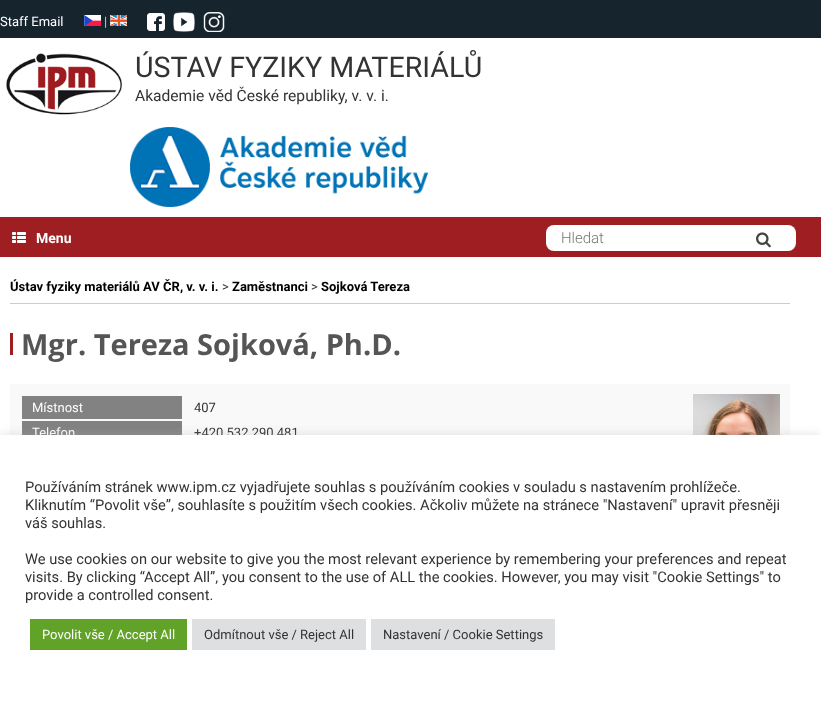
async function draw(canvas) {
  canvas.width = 821;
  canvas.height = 720;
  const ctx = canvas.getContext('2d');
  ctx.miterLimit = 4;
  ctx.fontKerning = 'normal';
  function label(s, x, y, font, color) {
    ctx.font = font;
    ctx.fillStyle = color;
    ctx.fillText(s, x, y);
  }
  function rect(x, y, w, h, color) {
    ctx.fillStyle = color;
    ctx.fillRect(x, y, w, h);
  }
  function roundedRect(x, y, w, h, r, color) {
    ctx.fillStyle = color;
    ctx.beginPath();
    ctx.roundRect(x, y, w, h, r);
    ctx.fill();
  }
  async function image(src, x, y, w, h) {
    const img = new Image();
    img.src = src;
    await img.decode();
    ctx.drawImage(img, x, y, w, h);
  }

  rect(0, 0, 821, 720, '#fff');
  rect(0, 0, 821, 38, '#16242e');
  label('Staff Email', 0, 26, '13px Roboto', '#fff');
  await image('assets/img1.png', 84, 15, 17, 11);
  label('|', 104, 26, '13px Roboto', '#ccc');
  await image('assets/img2.png', 110, 15, 17, 11);
  await image('assets/img3.png', 147, 13, 18, 18);
  await image('assets/img4.png', 173, 12, 22, 20);
  await image('assets/img5.png', 203, 12, 22, 20);
  await image('assets/img6.png', 6, 53, 116, 62);
  label('ÚSTAV FYZIKY MATERIÁLŮ', 135, 77, '28.6px Roboto', '#333');
  label('Akademie věd České republiky, v. v. i.', 135, 101, '15.6px Roboto', '#333');
  await image('assets/img7.png', 130, 127, 298, 80);
  rect(0, 217, 821, 40, '#9f1e21');
  await image('assets/img8.png', 12, 232, 14, 11);
  label('Menu', 36, 243, 'bold 14px Roboto', '#fff');
  roundedRect(546, 225, 250, 26, 8, '#fff');
  label('Hledat', 561, 243, '300 15px Roboto', '#757575');
  await image('assets/img9.png', 756, 232, 15, 16);
  label('Ústav fyziky materiálů AV ČR, v. v. i.', 10, 291, 'bold 13px Roboto', '#000');
  label('>', 222, 291, '13px Roboto', '#333');
  label('Zaměstnanci', 232, 291, 'bold 13px Roboto', '#000');
  label('>', 311, 291, '13px Roboto', '#333');
  label('Sojková Tereza', 321, 291, 'bold 13px Roboto', '#000');
  rect(10, 303, 780, 1, '#ccc');
  rect(10, 333, 3, 22, '#9f1e21');
  label('Mgr. Tereza Sojková, Ph.D.', 21, 355, 'bold 29px Open Sans', '#555');
  rect(10, 384, 780, 51, '#f9f9f9');
  rect(22, 396, 160, 23, '#828282');
  label('Místnost', 32, 412, '13px Roboto', '#fff');
  label('407', 194, 412, '13px Roboto', '#333');
  rect(22, 421, 160, 14, '#828282');
  label('Telefon', 32, 437, '13px Roboto', '#fff');
  label('+420 532 290 481', 194, 437, '13px Roboto', '#333');
  await image('assets/img10.png', 693, 394, 87, 41);
  ctx.fillStyle = '#acabab4d';
  ctx.filter = 'blur(5px)';
  ctx.beginPath();
  ctx.rect(0, 434, 821, 285);
  ctx.fill();
  ctx.filter = 'none';
  rect(0, 435, 821, 285, '#fff');
  label('Používáním stránek www.ipm.cz vyjadřujete souhlas s používáním cookies v souladu s nastavením prohlížeče.', 25, 492, '14.67px Roboto', '#333');
  label('Kliknutím “Povolit vše”, souhlasíte s použitím všech cookies. Ačkoliv můžete na stránece "Nastavení" upravit přesněji', 25, 510, '14.67px Roboto', '#333');
  label('váš souhlas.', 25, 528, '14.67px Roboto', '#333');
  label('We use cookies on our website to give you the most relevant experience by remembering your preferences and repeat', 25, 564, '14.67px Roboto', '#333');
  label('visits. By clicking “Accept All”, you consent to the use of ALL the cookies. However, you may visit "Cookie Settings" to', 25, 582, '14.67px Roboto', '#333');
  label('provide a controlled consent.', 25, 600, '14.67px Roboto', '#333');
  rect(30, 619, 157, 31, '#61a229');
  label('Povolit vše / Accept All', 42, 639, '13px Roboto', '#fff');
  rect(192, 619, 174, 31, '#dedfe0');
  label('Odmítnout vše / Reject All', 204, 639, '13px Roboto', '#333');
  rect(371, 619, 184, 31, '#dedfe0');
  label('Nastavení / Cookie Settings', 383, 639, '13px Roboto', '#333');
}

draw(document.querySelector('canvas'));
